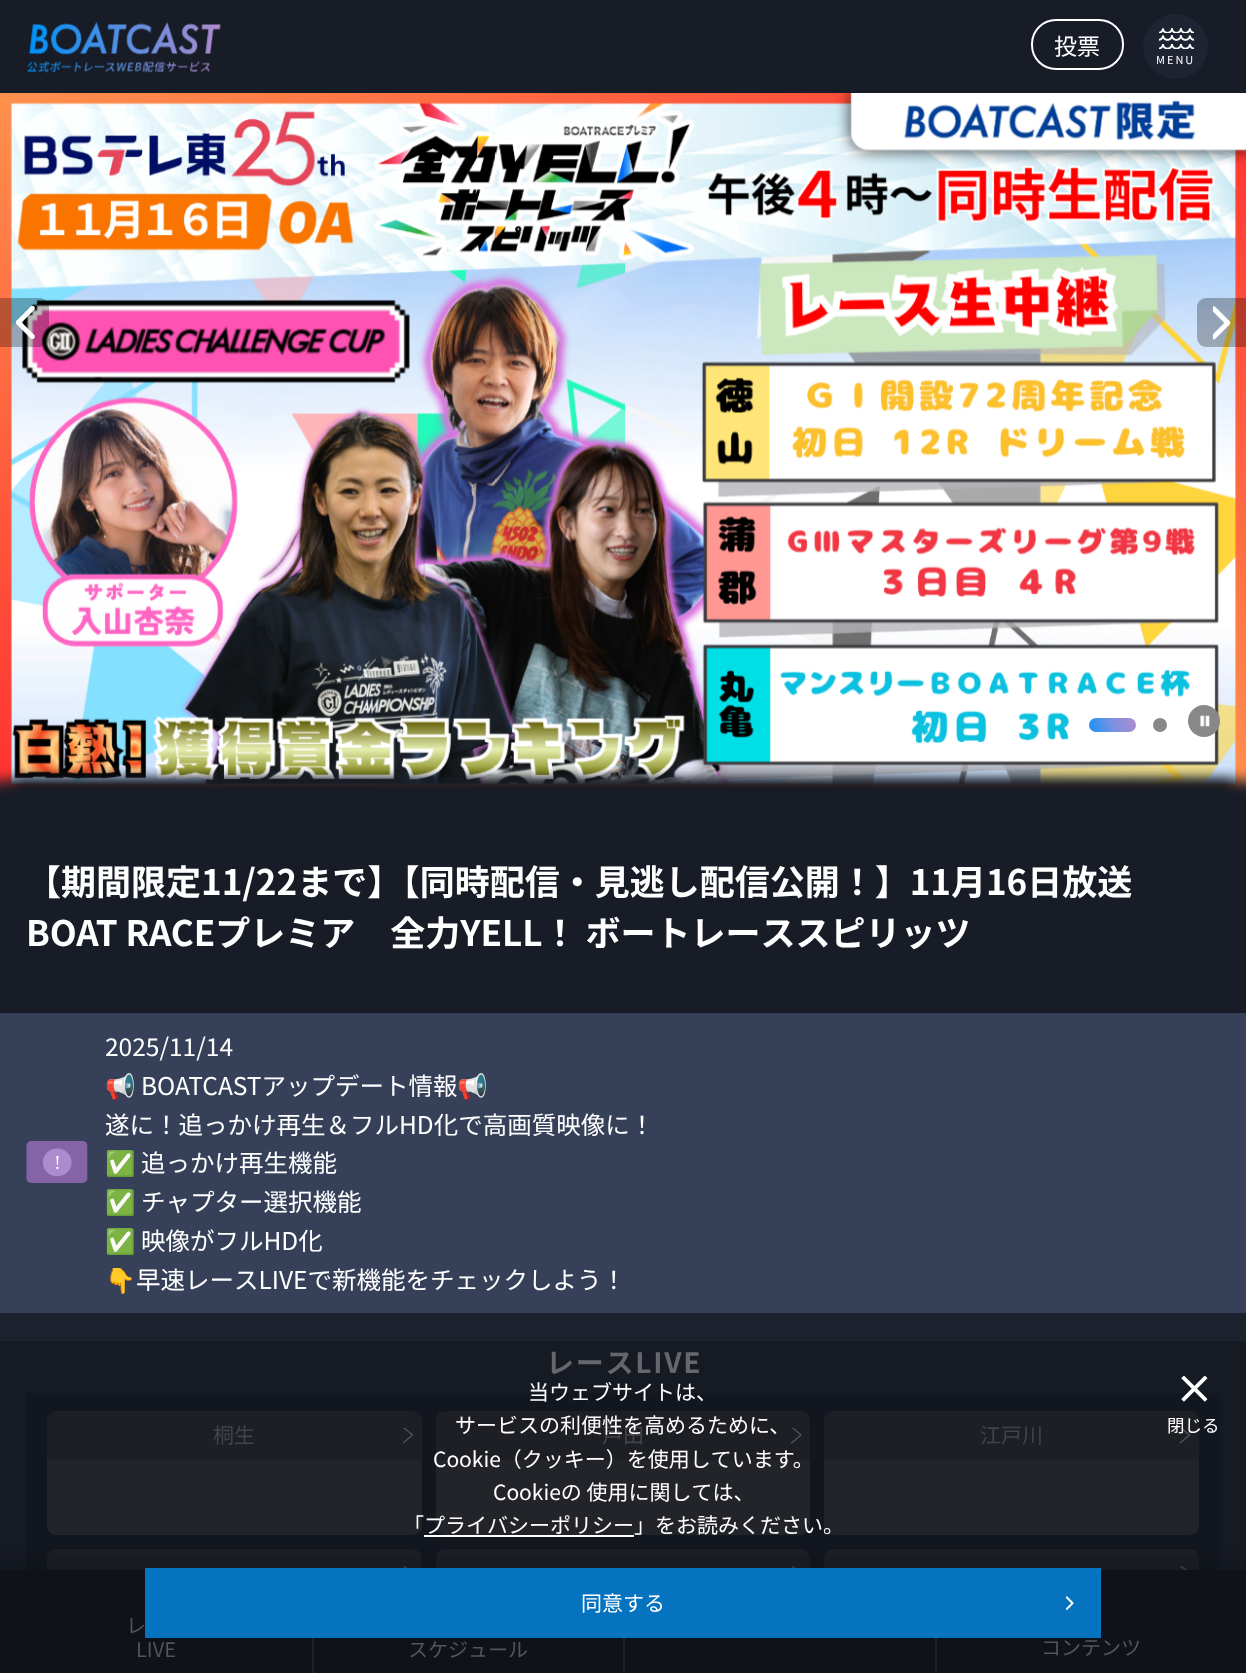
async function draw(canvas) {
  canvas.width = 1246;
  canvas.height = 1673;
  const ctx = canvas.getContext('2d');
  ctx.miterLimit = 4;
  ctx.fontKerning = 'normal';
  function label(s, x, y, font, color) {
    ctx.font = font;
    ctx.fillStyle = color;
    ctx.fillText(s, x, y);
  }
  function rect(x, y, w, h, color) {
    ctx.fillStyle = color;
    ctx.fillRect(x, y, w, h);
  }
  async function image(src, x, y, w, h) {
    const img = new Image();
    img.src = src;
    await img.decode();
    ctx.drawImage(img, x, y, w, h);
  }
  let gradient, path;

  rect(0, 0, 1246, 1673, '#171c26');
  await image('assets/img1.png', 27, 21, 194, 52);
  ctx.beginPath();
  ctx.roundRect(1032, 20, 91, 49, 24);
  ctx.strokeStyle = '#fff';
  ctx.lineWidth = 2;
  ctx.stroke();
  label('投票', 1054, 55, '23px Noto Sans JP', '#fff');
  ctx.fillStyle = '#1e2431';
  ctx.beginPath();
  ctx.arc(1175.5, 46.5, 32.5, 0, 2 * Math.PI);
  ctx.fill();
  await image('assets/img2.png', 1159, 28, 35, 5);
  await image('assets/img3.png', 1159, 35, 35, 6);
  await image('assets/img4.png', 1159, 44, 35, 5);
  ctx.letterSpacing = '2px';
  label('MENU', 1156, 64, '11px Noto Sans JP', '#fff');
  await image('assets/img8.png', 0, 93, 1246, 702);
  ctx.fillStyle = '#888889';
  ctx.beginPath();
  ctx.arc(1204, 721, 16, 0, 2 * Math.PI);
  ctx.fill();
  await image('assets/img5.png', 1200, 715, 10, 12);
  ctx.fillStyle = '#00000047';
  ctx.beginPath();
  ctx.roundRect(0, 298, 49, 49, [0, 9, 9, 0]);
  ctx.fill();
  await image('assets/img6.png', 16, 306, 19, 33);
  ctx.beginPath();
  ctx.roundRect(1197, 298, 49, 49, [9, 0, 0, 9]);
  ctx.fill();
  await image('assets/img7.png', 1213, 306, 18, 34);
  gradient = ctx.createLinearGradient(1089, 733, 1135, 716);
  gradient.addColorStop(0, '#1492f6');
  gradient.addColorStop(0.5, '#7991e2');
  gradient.addColorStop(1, '#af8bce');
  ctx.fillStyle = gradient;
  ctx.beginPath();
  ctx.roundRect(1089, 718, 47, 14, 7);
  ctx.fill();
  ctx.fillStyle = '#888889';
  ctx.beginPath();
  ctx.arc(1160, 725, 7, 0, 2 * Math.PI);
  ctx.fill();
  rect(0, 1013, 1246, 300, '#364159');
  ctx.save();
  ctx.beginPath();
  ctx.rect(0, 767, 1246, 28);
  ctx.clip();
  ctx.fillStyle = '#171c26';
  ctx.filter = 'blur(7px)';
  ctx.beginPath();
  ctx.rect(14, 781, 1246, 218);
  ctx.fill();
  ctx.filter = 'none';
  ctx.filter = 'blur(7px)';
  ctx.beginPath();
  ctx.rect(-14, 781, 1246, 218);
  ctx.fill();
  ctx.filter = 'none';
  ctx.restore();
  ctx.letterSpacing = '0px';
  label('【期間限定11/22まで】【同時配信・見逃し配信公開！】11月16日放送', 26, 895, 'bold 35px Noto Sans JP', '#fff');
  label('BOAT RACEプレミア　全力YELL！ ボートレーススピリッツ', 26, 946, 'bold 35px Noto Sans JP', '#fff');
  label('2025/11/14', 105, 1056, '24.5px Noto Sans JP', '#fff');
  await image('assets/img9.png', 26, 1141, 62, 42);
  label('📢', 105, 1095, '24.5px Noto Color Emoji', '#fff');
  label('BOATCASTアップデート情報', 141, 1095, '24.5px Noto Sans JP', '#fff');
  label('📢', 457, 1095, '24.5px Noto Color Emoji', '#fff');
  label('遂に！追っかけ再生＆フルHD化で高画質映像に！', 105, 1134, '24.5px Noto Sans JP', '#fff');
  label('✅', 105, 1172, '24.5px Noto Color Emoji', '#fff');
  label('追っかけ再生機能', 141, 1172, '24.5px Noto Sans JP', '#fff');
  label('✅', 105, 1211, '24.5px Noto Color Emoji', '#fff');
  label('チャプター選択機能', 141, 1211, '24.5px Noto Sans JP', '#fff');
  label('✅', 105, 1250, '24.5px Noto Color Emoji', '#fff');
  label('映像がフルHD化', 141, 1250, '24.5px Noto Sans JP', '#fff');
  label('👇️', 105, 1289, '24.5px Noto Color Emoji', '#fff');
  label('早速レースLIVEで新機能をチェックしよう！', 136, 1289, '24.5px Noto Sans JP', '#fff');
  rect(0, 1313, 1246, 28, '#1c222e');
  rect(0, 1341, 1246, 229, '#161a23');
  ctx.letterSpacing = '1.75px';
  label('レースLIVE', 546, 1373, 'bold 28px Noto Sans JP', '#65676c');
  rect(26, 1393, 1194, 177, '#12161e');
  ctx.fillStyle = '#1d1f24';
  ctx.beginPath();
  ctx.roundRect(47, 1411, 375, 49, [9, 9, 0, 0]);
  ctx.fill();
  ctx.letterSpacing = '0px';
  label('桐生', 213, 1443, '21px Noto Sans JP', '#424449');
  ctx.save();
  ctx.beginPath();
  ctx.rect(403, 1428, 10, 16);
  ctx.clip();
  path = new Path2D('M403 1427L412.5 1435L403 1443');
  ctx.strokeStyle = '#53555a';
  ctx.lineWidth = 1.3;
  ctx.lineCap = 'round';
  ctx.stroke(path);
  ctx.restore();
  ctx.fillStyle = '#222429';
  ctx.beginPath();
  ctx.roundRect(47, 1460, 375, 75, [0, 0, 9, 9]);
  ctx.fill();
  ctx.fillStyle = '#1d1f24';
  ctx.beginPath();
  ctx.roundRect(436, 1411, 374, 49, [9, 9, 0, 0]);
  ctx.fill();
  label('戸田', 602, 1443, '21px Noto Sans JP', '#424449');
  ctx.save();
  ctx.beginPath();
  ctx.rect(791, 1428, 11, 16);
  ctx.clip();
  path = new Path2D('M791.5 1427L801 1435L791.5 1443');
  ctx.strokeStyle = '#53555a';
  ctx.lineWidth = 1.3;
  ctx.lineCap = 'round';
  ctx.stroke(path);
  ctx.restore();
  ctx.fillStyle = '#222429';
  ctx.beginPath();
  ctx.roundRect(436, 1460, 374, 75, [0, 0, 9, 9]);
  ctx.fill();
  ctx.fillStyle = '#1d1f24';
  ctx.beginPath();
  ctx.roundRect(824, 1411, 375, 49, [9, 9, 0, 0]);
  ctx.fill();
  label('江戸川', 980, 1443, '21px Noto Sans JP', '#424449');
  ctx.save();
  ctx.beginPath();
  ctx.rect(1180, 1428, 10, 16);
  ctx.clip();
  path = new Path2D('M1180 1427L1189.5 1435L1180 1443');
  ctx.strokeStyle = '#53555a';
  ctx.lineWidth = 1.3;
  ctx.lineCap = 'round';
  ctx.stroke(path);
  ctx.restore();
  ctx.fillStyle = '#222429';
  ctx.beginPath();
  ctx.roundRect(824, 1460, 375, 75, [0, 0, 9, 9]);
  ctx.fill();
  ctx.fillStyle = '#1d1f24';
  ctx.beginPath();
  ctx.roundRect(47, 1549, 375, 49, [9, 9, 0, 0]);
  ctx.fill();
  ctx.save();
  ctx.beginPath();
  ctx.rect(403, 1566, 10, 16);
  ctx.clip();
  path = new Path2D('M403 1565.5L412.5 1573L403 1581');
  ctx.strokeStyle = '#53555a';
  ctx.lineWidth = 1.3;
  ctx.lineCap = 'round';
  ctx.stroke(path);
  ctx.restore();
  ctx.beginPath();
  ctx.roundRect(436, 1549, 374, 49, [9, 9, 0, 0]);
  ctx.fill();
  ctx.save();
  ctx.beginPath();
  ctx.rect(791, 1566, 11, 16);
  ctx.clip();
  path = new Path2D('M791.5 1565.5L801 1573L791.5 1581');
  ctx.strokeStyle = '#53555a';
  ctx.lineWidth = 1.3;
  ctx.lineCap = 'round';
  ctx.stroke(path);
  ctx.restore();
  ctx.beginPath();
  ctx.roundRect(824, 1549, 375, 49, [9, 9, 0, 0]);
  ctx.fill();
  ctx.save();
  ctx.beginPath();
  ctx.rect(1180, 1566, 10, 16);
  ctx.clip();
  path = new Path2D('M1180 1565.5L1189.5 1573L1180 1581');
  ctx.strokeStyle = '#53555a';
  ctx.lineWidth = 1.3;
  ctx.lineCap = 'round';
  ctx.stroke(path);
  ctx.restore();
  label('当ウェブサイトは、', 528, 1400, '21px Noto Sans JP', '#fff');
  label('サービスの利便性を高めるために、', 455, 1433, '21px Noto Sans JP', '#fff');
  label('Cookie（クッキー）を使用しています。', 433, 1467, '21px Noto Sans JP', '#fff');
  label('Cookieの 使用に関しては、', 493, 1500, '21px Noto Sans JP', '#fff');
  label('「プライバシーポリシー」をお読みください。', 403, 1533, '21px Noto Sans JP', '#fff');
  rect(424, 1535, 210, 2, '#fff');
  await image('assets/img10.png', 1181, 1376, 27, 26);
  label('閉じる', 1167, 1432, '17.5px Noto Sans JP', '#fff');
  ctx.fillStyle = '#0c0e1342';
  ctx.filter = 'blur(5px)';
  ctx.beginPath();
  ctx.rect(-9, 1558, 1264, 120);
  ctx.fill();
  ctx.filter = 'none';
  rect(0, 1570, 1246, 103, '#0f1218');
  rect(145, 1568, 956, 70, '#0573bf');
  label('同意する', 581, 1611, '21px Noto Sans JP', '#fff');
  await image('assets/img11.png', 1066, 1596, 8, 14);
  label('レ', 126, 1633, '20px Noto Sans JP', '#53555a');
  label('LIVE', 136, 1657, '20px Noto Sans JP', '#53555a');
  rect(312, 1638, 2, 35, '#1c222e');
  label('スケジュール', 408, 1657, '20px Noto Sans JP', '#53555a');
  rect(623, 1638, 2, 35, '#1c222e');
  rect(935, 1638, 2, 35, '#1c222e');
  label('コンテンツ', 1041, 1655, '20px Noto Sans JP', '#53555a');
}

draw(document.querySelector('canvas'));
